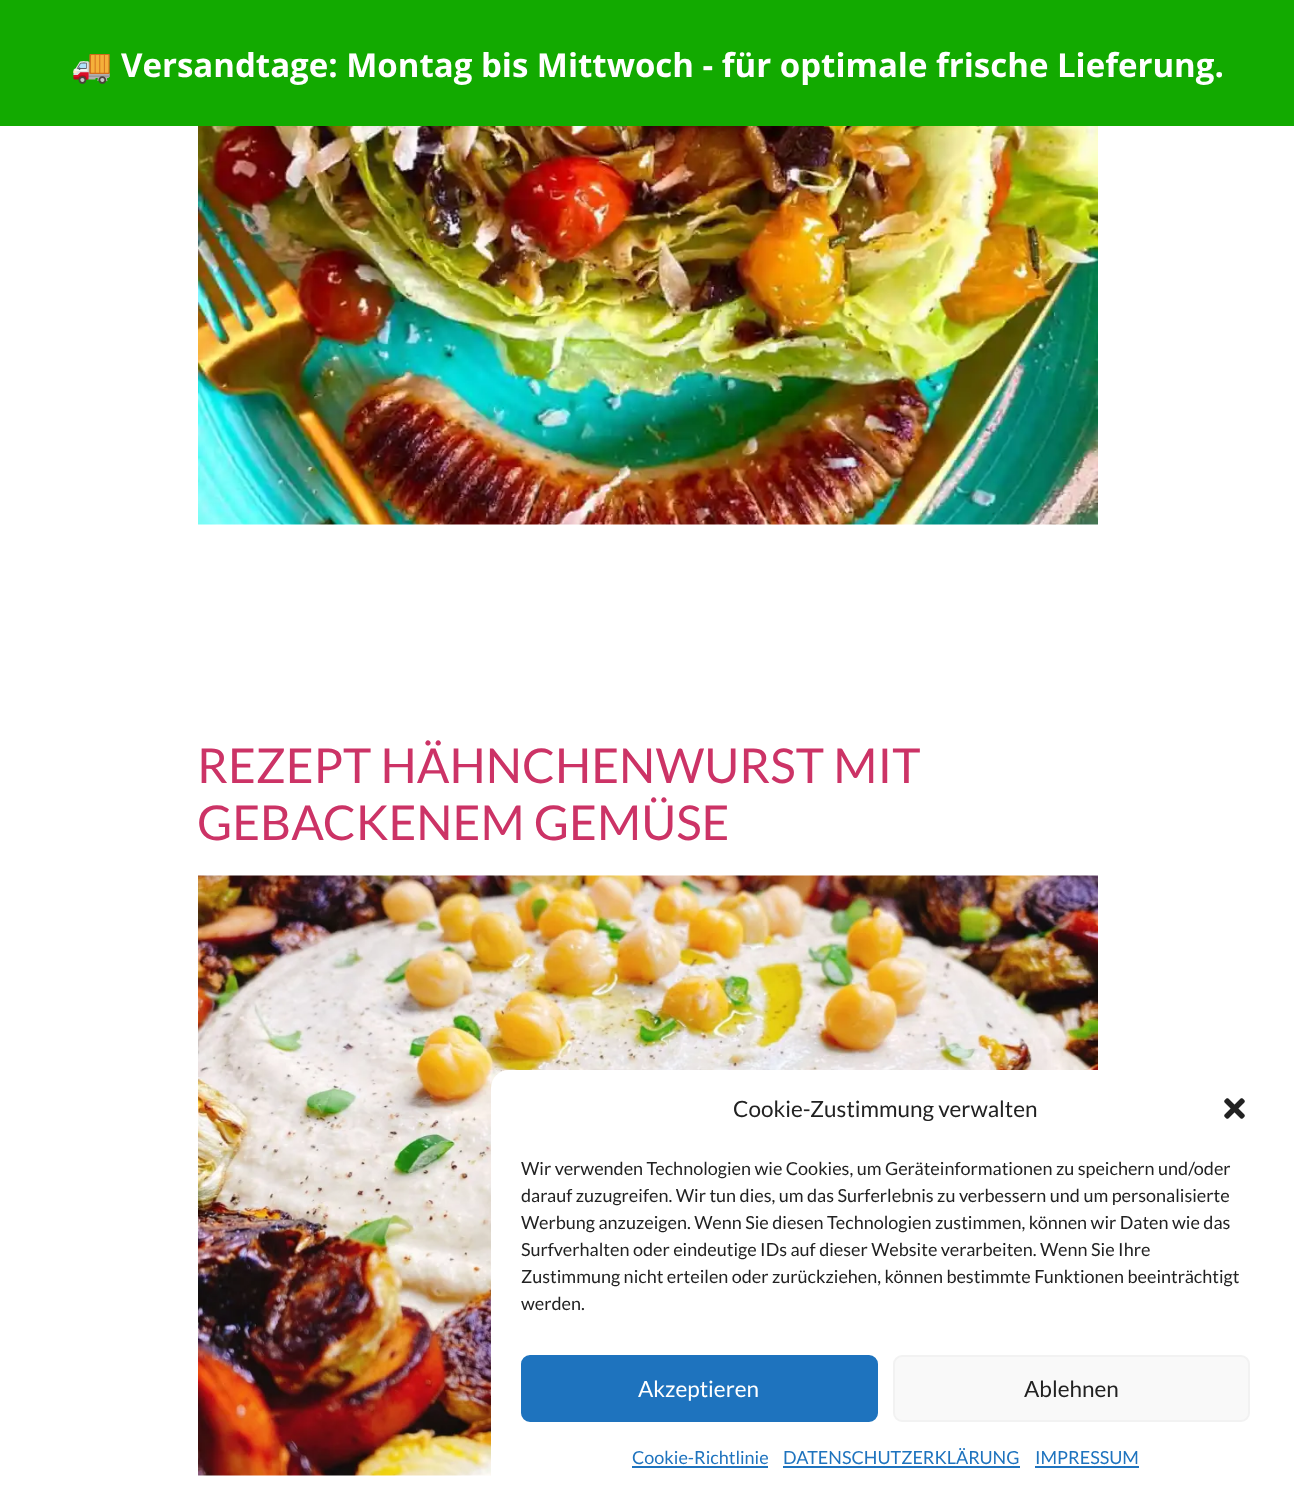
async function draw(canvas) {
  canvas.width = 1294;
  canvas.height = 1510;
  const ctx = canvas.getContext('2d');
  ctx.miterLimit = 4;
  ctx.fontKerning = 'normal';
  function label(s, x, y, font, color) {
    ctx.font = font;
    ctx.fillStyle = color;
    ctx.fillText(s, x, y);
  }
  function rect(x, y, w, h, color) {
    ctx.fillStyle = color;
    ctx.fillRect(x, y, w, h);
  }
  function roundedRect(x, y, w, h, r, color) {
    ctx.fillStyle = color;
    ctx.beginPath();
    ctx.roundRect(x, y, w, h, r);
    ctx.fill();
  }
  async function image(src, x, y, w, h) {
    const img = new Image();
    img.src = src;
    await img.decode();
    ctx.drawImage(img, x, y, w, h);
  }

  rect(0, 0, 1294, 1510, '#fff');
  rect(0, 0, 1294, 126, '#12aa00');
  label('🚚', 71, 77, 'bold 33px Noto Color Emoji', '#fff');
  label('Versandtage: Montag bis Mittwoch - für optimale frische Lieferung.', 121, 77, 'bold 33px Open Sans', '#fff');
  await image('assets/img1.png', 198, 126, 900, 399);
  label('REZEPT HÄHNCHENWURST MIT', 197, 783, '48px Lato', '#c36');
  label('GEBACKENEM GEMÜSE', 197, 840, '48px Lato', '#c36');
  await image('assets/img2.png', 198, 875, 900, 601);
  roundedRect(491, 1070, 789, 426, 18, '#fff');
  label('Cookie-Zustimmung verwalten', 733, 1117, '22.5px Lato', '#222');
  await image('assets/img3.png', 1224, 1098, 21, 21);
  label('Wir verwenden Technologien wie Cookies, um Geräteinformationen zu speichern und/oder', 521, 1175, '18px Lato', '#222');
  label('darauf zuzugreifen. Wir tun dies, um das Surferlebnis zu verbessern und um personalisierte', 521, 1202, '18px Lato', '#222');
  label('Werbung anzuzeigen. Wenn Sie diesen Technologien zustimmen, können wir Daten wie das', 521, 1229, '18px Lato', '#222');
  label('Surfverhalten oder eindeutige IDs auf dieser Website verarbeiten. Wenn Sie Ihre', 521, 1256, '18px Lato', '#222');
  label('Zustimmung nicht erteilen oder zurückziehen, können bestimmte Funktionen beeinträchtigt', 521, 1283, '18px Lato', '#222');
  label('werden.', 521, 1310, '18px Lato', '#222');
  ctx.fillStyle = '#1e73be';
  ctx.beginPath();
  ctx.roundRect(522, 1356, 355, 65, 8);
  ctx.fill();
  ctx.strokeStyle = '#1e73be';
  ctx.lineWidth = 2;
  ctx.stroke();
  label('Akzeptieren', 638, 1397, '22.5px Lato', '#fff');
  ctx.fillStyle = '#f9f9f9';
  ctx.beginPath();
  ctx.roundRect(894, 1356, 355, 65, 8);
  ctx.fill();
  ctx.strokeStyle = '#f2f2f2';
  ctx.stroke();
  label('Ablehnen', 1024, 1397, '22.5px Lato', '#222');
  label('Cookie-Richtlinie', 632, 1464, '18px Lato', '#1e73be');
  rect(632, 1466, 136, 2, '#1e73be');
  label('DATENSCHUTZERKLÄRUNG', 783, 1464, '18px Lato', '#1e73be');
  rect(783, 1466, 237, 2, '#1e73be');
  label('IMPRESSUM', 1035, 1464, '18px Lato', '#1e73be');
  rect(1035, 1466, 104, 2, '#1e73be');
}

draw(document.querySelector('canvas'));
